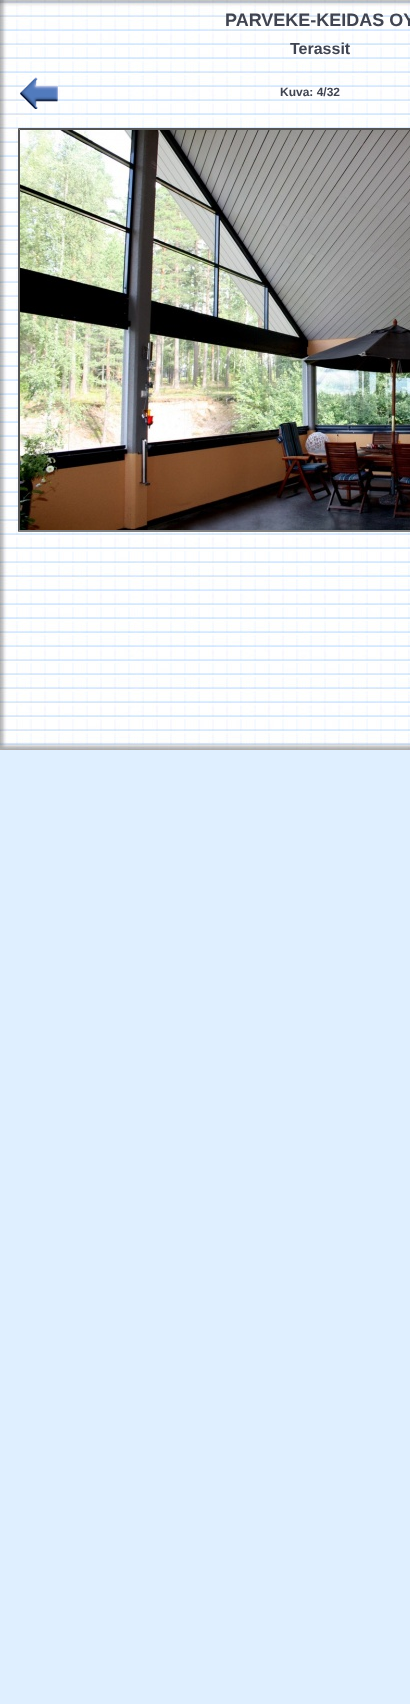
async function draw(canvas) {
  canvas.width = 410;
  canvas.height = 1704;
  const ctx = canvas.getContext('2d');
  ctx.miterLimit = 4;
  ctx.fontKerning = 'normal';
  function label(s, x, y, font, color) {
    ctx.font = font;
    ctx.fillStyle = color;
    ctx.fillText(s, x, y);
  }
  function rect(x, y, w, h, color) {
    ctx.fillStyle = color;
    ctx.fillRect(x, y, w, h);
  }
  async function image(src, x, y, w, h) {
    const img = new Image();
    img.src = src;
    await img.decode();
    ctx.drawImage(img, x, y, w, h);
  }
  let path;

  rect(0, 0, 410, 1704, '#dfefff');
  await image('assets/img1.png', 0, 0, 410, 750);
  label('PARVEKE-KEIDAS OY', 225, 26, 'bold 18px Liberation Sans', '#404450');
  label('Terassit', 290, 54, 'bold 16px Liberation Sans', '#404450');
  await image('assets/img2.png', 20, 77, 38, 32);
  label('Kuva: 4/32', 280, 96, 'bold 12px Liberation Sans', '#404450');
  ctx.fillStyle = '#555';
  path = new Path2D('M18 128H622L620 130H20Z');
  ctx.fill(path);
  ctx.fillStyle = '#808080';
  path = new Path2D('M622 532H18L20 530H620Z');
  ctx.fill(path);
  ctx.fillStyle = '#555';
  path = new Path2D('M18 532V128L20 130V530Z');
  ctx.fill(path);
  await image('assets/img3.png', 20, 130, 390, 400);
}

draw(document.querySelector('canvas'));
